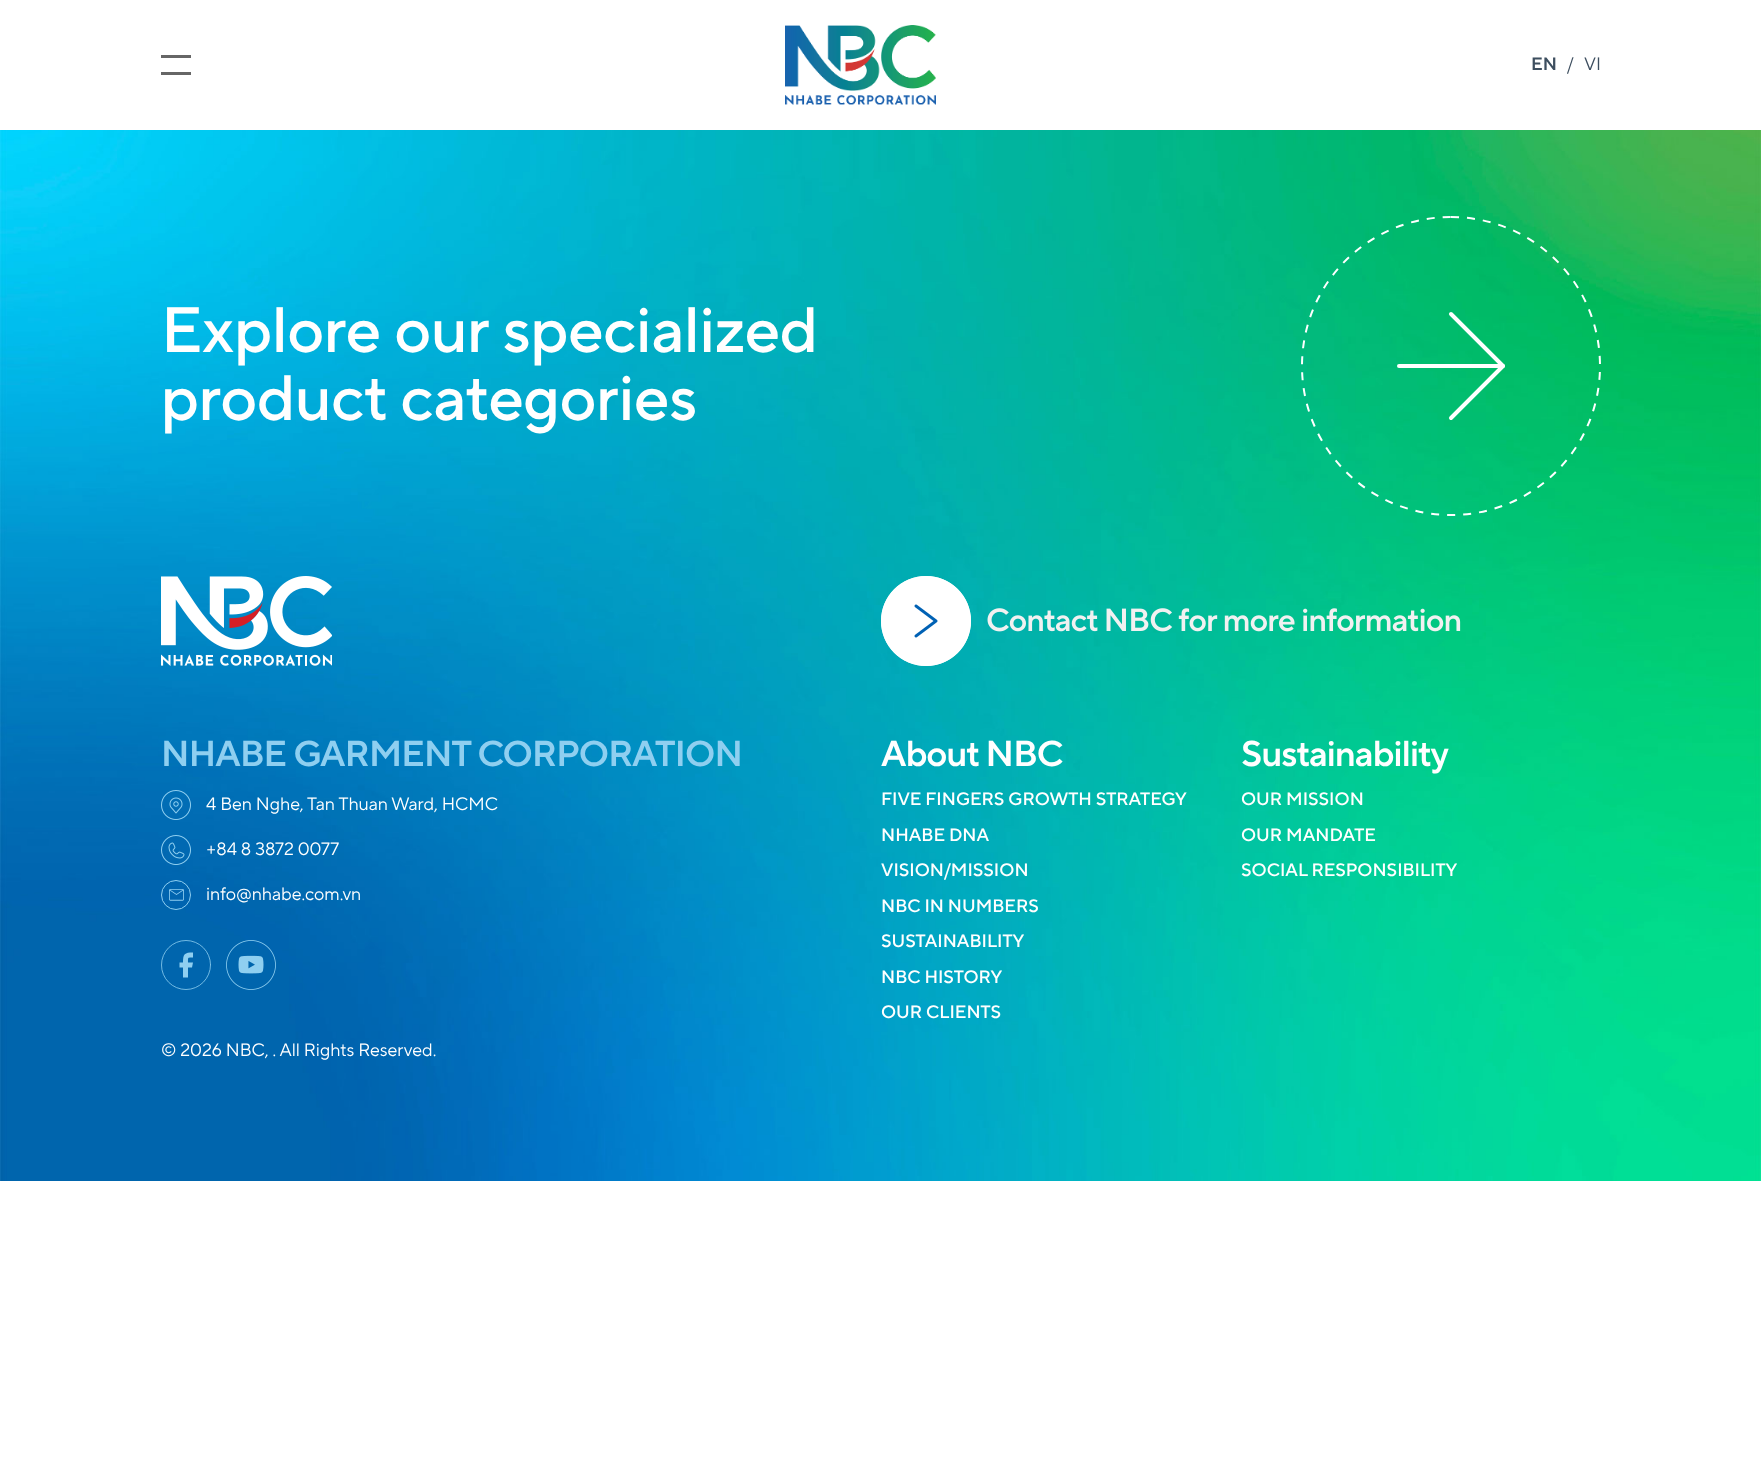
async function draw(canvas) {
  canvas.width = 1761;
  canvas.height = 1481;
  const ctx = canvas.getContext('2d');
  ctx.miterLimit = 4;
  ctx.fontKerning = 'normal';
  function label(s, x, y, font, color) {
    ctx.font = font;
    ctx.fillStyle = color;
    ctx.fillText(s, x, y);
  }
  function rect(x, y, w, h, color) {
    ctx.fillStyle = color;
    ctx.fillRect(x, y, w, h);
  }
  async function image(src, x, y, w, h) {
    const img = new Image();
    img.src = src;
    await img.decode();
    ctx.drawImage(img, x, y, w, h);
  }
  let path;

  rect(0, 0, 1761, 1481, '#fff');
  rect(161, 55, 30, 3, '#666');
  rect(161, 72, 30, 3, '#666');
  await image('assets/img1.png', 785, 25, 151, 80);
  label('EN', 1531, 70, '600 18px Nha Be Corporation', '#3d4e5f');
  label('/', 1567, 70, '18px Nha Be Corporation', '#3d4e5f');
  label('VI', 1584, 70, '18px Nha Be Corporation', '#3d4e5f');
  await image('assets/img2.png', 0, 130, 1761, 1051);
  label('Explore our specialized', 161, 352, '500 64px Nha Be Corporation', '#fff');
  label('product categories', 161, 420, '500 64px Nha Be Corporation', '#fff');
  path = new Path2D('M1451 217C1533.5 217 1600 283.5 1600 366C1600 448.5 1533.5 515 1451 515C1368.5 515 1302 448.5 1302 366C1302 283.5 1368.5 217 1451 217Z');
  ctx.strokeStyle = '#fff';
  ctx.lineWidth = 2;
  ctx.setLineDash([8, 8]);
  ctx.stroke(path);
  path = new Path2D('M1399 366H1503');
  ctx.lineWidth = 4;
  ctx.lineCap = 'round';
  ctx.lineJoin = 'round';
  ctx.setLineDash([]);
  ctx.stroke(path);
  path = new Path2D('M1451 314L1503 366L1451 418');
  ctx.stroke(path);
  await image('assets/img3.png', 161, 576, 171, 90);
  await image('assets/img4.png', 881, 576, 580, 90);
  ctx.letterSpacing = '-0.75px';
  label('NHABE GARMENT CORPORATION', 161, 766, '600 36px Nha Be Corporation', '#8fcff0');
  await image('assets/img5.png', 161, 790, 30, 30);
  ctx.letterSpacing = '0px';
  label('4 Ben Nghe, Tan Thuan Ward, HCMC', 206, 810, '18px Nha Be Corporation', '#fff');
  await image('assets/img6.png', 161, 835, 30, 30);
  label('+84 8 3872 0077', 206, 855, '18px Nha Be Corporation', '#fff');
  await image('assets/img7.png', 161, 880, 30, 30);
  label('info@nhabe.com.vn', 206, 900, '18px Nha Be Corporation', '#fff');
  ctx.beginPath();
  ctx.arc(186, 965, 24.5, 0, 2 * Math.PI);
  ctx.strokeStyle = '#8fcff0';
  ctx.lineWidth = 0.8;
  ctx.stroke();
  ctx.fillStyle = '#8fcff0';
  path = new Path2D('M193 952.5C184.5 952.5 183 954 183 962.5H179.5V967.5H183V977.5H188V967.5H192L193 962.5H188C188 957 187.5 957.5 193 957.5Z');
  ctx.fill(path);
  await image('assets/img8.png', 226, 940, 50, 50);
  label('© 2026 NBC, . All Rights Reserved.', 161, 1056, '18px Nha Be Corporation', '#fff');
  ctx.letterSpacing = '-0.75px';
  label('About NBC', 881, 766, '600 36px Nha Be Corporation', '#fff');
  ctx.letterSpacing = '0px';
  label('FIVE FINGERS GROWTH STRATEGY', 881, 805, '500 18px Nha Be Corporation', '#fff');
  label('NHABE DNA', 881, 841, '500 18px Nha Be Corporation', '#fff');
  label('VISION/MISSION', 881, 876, '500 18px Nha Be Corporation', '#fff');
  label('NBC IN NUMBERS', 881, 912, '500 18px Nha Be Corporation', '#fff');
  label('SUSTAINABILITY', 881, 947, '500 18px Nha Be Corporation', '#fff');
  label('NBC HISTORY', 881, 983, '500 18px Nha Be Corporation', '#fff');
  label('OUR CLIENTS', 881, 1018, '500 18px Nha Be Corporation', '#fff');
  ctx.letterSpacing = '-0.75px';
  label('Sustainability', 1241, 766, '600 36px Nha Be Corporation', '#fff');
  ctx.letterSpacing = '0px';
  label('OUR MISSION', 1241, 805, '500 18px Nha Be Corporation', '#fff');
  label('OUR MANDATE', 1241, 841, '500 18px Nha Be Corporation', '#fff');
  label('SOCIAL RESPONSIBILITY', 1241, 876, '500 18px Nha Be Corporation', '#fff');
}

draw(document.querySelector('canvas'));
